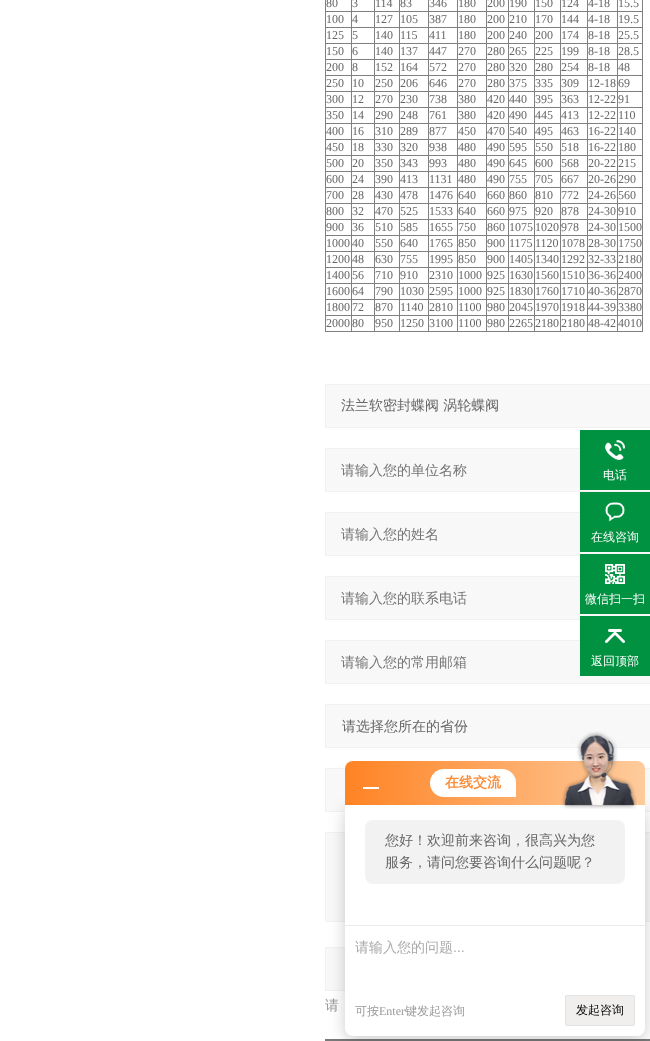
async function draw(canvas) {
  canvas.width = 650;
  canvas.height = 1041;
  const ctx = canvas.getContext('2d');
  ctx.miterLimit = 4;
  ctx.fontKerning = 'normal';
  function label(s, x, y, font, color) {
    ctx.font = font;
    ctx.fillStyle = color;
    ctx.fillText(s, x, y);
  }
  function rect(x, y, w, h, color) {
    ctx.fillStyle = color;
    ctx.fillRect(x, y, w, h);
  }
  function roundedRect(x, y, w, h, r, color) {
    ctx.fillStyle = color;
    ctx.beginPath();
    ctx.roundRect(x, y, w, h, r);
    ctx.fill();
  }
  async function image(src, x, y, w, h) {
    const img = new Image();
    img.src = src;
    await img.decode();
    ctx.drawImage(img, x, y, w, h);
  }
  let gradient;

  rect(0, 0, 650, 1041, '#fff');
  rect(642, 0, 1, 332, '#808080');
  rect(325, 331, 318, 1, '#808080');
  rect(325, 0, 1, 332, '#808080');
  label('80', 326, 7, '12px Liberation Serif', '#666');
  rect(617, 11, 26, 1, '#808080');
  rect(617, 27, 26, 1, '#808080');
  rect(617, 43, 26, 1, '#808080');
  rect(617, 59, 26, 1, '#808080');
  rect(617, 75, 26, 1, '#808080');
  rect(617, 91, 26, 1, '#808080');
  rect(617, 107, 26, 1, '#808080');
  rect(617, 123, 26, 1, '#808080');
  rect(617, 139, 26, 1, '#808080');
  rect(617, 155, 26, 1, '#808080');
  rect(617, 171, 26, 1, '#808080');
  rect(617, 187, 26, 1, '#808080');
  rect(617, 203, 26, 1, '#808080');
  rect(617, 219, 26, 1, '#808080');
  rect(617, 235, 26, 1, '#808080');
  rect(617, 251, 26, 1, '#808080');
  rect(617, 267, 26, 1, '#808080');
  rect(617, 283, 26, 1, '#808080');
  rect(617, 299, 26, 1, '#808080');
  rect(617, 315, 26, 1, '#808080');
  rect(617, 315, 1, 17, '#808080');
  rect(587, 315, 31, 1, '#808080');
  rect(617, 299, 1, 17, '#808080');
  rect(587, 299, 31, 1, '#808080');
  rect(617, 283, 1, 17, '#808080');
  rect(587, 283, 31, 1, '#808080');
  rect(617, 267, 1, 17, '#808080');
  rect(587, 267, 31, 1, '#808080');
  rect(617, 251, 1, 17, '#808080');
  rect(587, 251, 31, 1, '#808080');
  rect(617, 235, 1, 17, '#808080');
  rect(587, 235, 31, 1, '#808080');
  rect(617, 219, 1, 17, '#808080');
  rect(587, 219, 31, 1, '#808080');
  rect(617, 203, 1, 17, '#808080');
  rect(587, 203, 31, 1, '#808080');
  rect(617, 187, 1, 17, '#808080');
  rect(587, 187, 31, 1, '#808080');
  rect(617, 171, 1, 17, '#808080');
  rect(587, 171, 31, 1, '#808080');
  rect(617, 155, 1, 17, '#808080');
  rect(587, 155, 31, 1, '#808080');
  rect(617, 139, 1, 17, '#808080');
  rect(587, 139, 31, 1, '#808080');
  rect(617, 123, 1, 17, '#808080');
  rect(587, 123, 31, 1, '#808080');
  rect(617, 107, 1, 17, '#808080');
  rect(587, 107, 31, 1, '#808080');
  rect(617, 91, 1, 17, '#808080');
  rect(587, 91, 31, 1, '#808080');
  rect(617, 75, 1, 17, '#808080');
  rect(587, 75, 31, 1, '#808080');
  rect(617, 59, 1, 17, '#808080');
  rect(587, 59, 31, 1, '#808080');
  rect(617, 43, 1, 17, '#808080');
  rect(587, 43, 31, 1, '#808080');
  rect(617, 27, 1, 17, '#808080');
  rect(587, 27, 31, 1, '#808080');
  rect(617, 11, 1, 17, '#808080');
  rect(587, 11, 31, 1, '#808080');
  rect(587, 315, 1, 17, '#808080');
  rect(560, 315, 28, 1, '#808080');
  rect(587, 299, 1, 17, '#808080');
  rect(560, 299, 28, 1, '#808080');
  rect(587, 283, 1, 17, '#808080');
  rect(560, 283, 28, 1, '#808080');
  rect(587, 267, 1, 17, '#808080');
  rect(560, 267, 28, 1, '#808080');
  rect(587, 251, 1, 17, '#808080');
  rect(560, 251, 28, 1, '#808080');
  rect(587, 235, 1, 17, '#808080');
  rect(560, 235, 28, 1, '#808080');
  rect(587, 219, 1, 17, '#808080');
  rect(560, 219, 28, 1, '#808080');
  rect(587, 203, 1, 17, '#808080');
  rect(560, 203, 28, 1, '#808080');
  rect(587, 187, 1, 17, '#808080');
  rect(560, 187, 28, 1, '#808080');
  rect(587, 171, 1, 17, '#808080');
  rect(560, 171, 28, 1, '#808080');
  rect(587, 155, 1, 17, '#808080');
  rect(560, 155, 28, 1, '#808080');
  rect(587, 139, 1, 17, '#808080');
  rect(560, 139, 28, 1, '#808080');
  rect(587, 123, 1, 17, '#808080');
  rect(560, 123, 28, 1, '#808080');
  rect(587, 107, 1, 17, '#808080');
  rect(560, 107, 28, 1, '#808080');
  rect(587, 91, 1, 17, '#808080');
  rect(560, 91, 28, 1, '#808080');
  rect(587, 75, 1, 17, '#808080');
  rect(560, 75, 28, 1, '#808080');
  rect(587, 59, 1, 17, '#808080');
  rect(560, 59, 28, 1, '#808080');
  rect(587, 43, 1, 17, '#808080');
  rect(560, 43, 28, 1, '#808080');
  rect(587, 27, 1, 17, '#808080');
  rect(560, 27, 28, 1, '#808080');
  rect(587, 11, 1, 17, '#808080');
  rect(560, 11, 28, 1, '#808080');
  rect(560, 315, 1, 17, '#808080');
  rect(534, 315, 27, 1, '#808080');
  rect(560, 299, 1, 17, '#808080');
  rect(534, 299, 27, 1, '#808080');
  rect(560, 283, 1, 17, '#808080');
  rect(534, 283, 27, 1, '#808080');
  rect(560, 267, 1, 17, '#808080');
  rect(534, 267, 27, 1, '#808080');
  rect(560, 251, 1, 17, '#808080');
  rect(534, 251, 27, 1, '#808080');
  rect(560, 235, 1, 17, '#808080');
  rect(534, 235, 27, 1, '#808080');
  rect(560, 219, 1, 17, '#808080');
  rect(534, 219, 27, 1, '#808080');
  rect(560, 203, 1, 17, '#808080');
  rect(534, 203, 27, 1, '#808080');
  rect(560, 187, 1, 17, '#808080');
  rect(534, 187, 27, 1, '#808080');
  rect(560, 171, 1, 17, '#808080');
  rect(534, 171, 27, 1, '#808080');
  rect(560, 155, 1, 17, '#808080');
  rect(534, 155, 27, 1, '#808080');
  rect(560, 139, 1, 17, '#808080');
  rect(534, 139, 27, 1, '#808080');
  rect(560, 123, 1, 17, '#808080');
  rect(534, 123, 27, 1, '#808080');
  rect(560, 107, 1, 17, '#808080');
  rect(534, 107, 27, 1, '#808080');
  rect(560, 91, 1, 17, '#808080');
  rect(534, 91, 27, 1, '#808080');
  rect(560, 75, 1, 17, '#808080');
  rect(534, 75, 27, 1, '#808080');
  rect(560, 59, 1, 17, '#808080');
  rect(534, 59, 27, 1, '#808080');
  rect(560, 43, 1, 17, '#808080');
  rect(534, 43, 27, 1, '#808080');
  rect(560, 27, 1, 17, '#808080');
  rect(534, 27, 27, 1, '#808080');
  rect(560, 11, 1, 17, '#808080');
  rect(534, 11, 27, 1, '#808080');
  rect(534, 315, 1, 17, '#808080');
  rect(508, 315, 27, 1, '#808080');
  rect(534, 299, 1, 17, '#808080');
  rect(508, 299, 27, 1, '#808080');
  rect(534, 283, 1, 17, '#808080');
  rect(508, 283, 27, 1, '#808080');
  rect(534, 267, 1, 17, '#808080');
  rect(508, 267, 27, 1, '#808080');
  rect(534, 251, 1, 17, '#808080');
  rect(508, 251, 27, 1, '#808080');
  rect(534, 235, 1, 17, '#808080');
  rect(508, 235, 27, 1, '#808080');
  rect(534, 219, 1, 17, '#808080');
  rect(508, 219, 27, 1, '#808080');
  rect(534, 203, 1, 17, '#808080');
  rect(508, 203, 27, 1, '#808080');
  rect(534, 187, 1, 17, '#808080');
  rect(508, 187, 27, 1, '#808080');
  rect(534, 171, 1, 17, '#808080');
  rect(508, 171, 27, 1, '#808080');
  rect(534, 155, 1, 17, '#808080');
  rect(508, 155, 27, 1, '#808080');
  rect(534, 139, 1, 17, '#808080');
  rect(508, 139, 27, 1, '#808080');
  rect(534, 123, 1, 17, '#808080');
  rect(508, 123, 27, 1, '#808080');
  rect(534, 107, 1, 17, '#808080');
  rect(508, 107, 27, 1, '#808080');
  rect(534, 91, 1, 17, '#808080');
  rect(508, 91, 27, 1, '#808080');
  rect(534, 75, 1, 17, '#808080');
  rect(508, 75, 27, 1, '#808080');
  rect(534, 59, 1, 17, '#808080');
  rect(508, 59, 27, 1, '#808080');
  rect(534, 43, 1, 17, '#808080');
  rect(508, 43, 27, 1, '#808080');
  rect(534, 27, 1, 17, '#808080');
  rect(508, 27, 27, 1, '#808080');
  rect(534, 11, 1, 17, '#808080');
  rect(508, 11, 27, 1, '#808080');
  rect(508, 315, 1, 17, '#808080');
  rect(486, 315, 23, 1, '#808080');
  rect(508, 299, 1, 17, '#808080');
  rect(486, 299, 23, 1, '#808080');
  rect(508, 283, 1, 17, '#808080');
  rect(486, 283, 23, 1, '#808080');
  rect(508, 267, 1, 17, '#808080');
  rect(486, 267, 23, 1, '#808080');
  rect(508, 251, 1, 17, '#808080');
  rect(486, 251, 23, 1, '#808080');
  rect(508, 235, 1, 17, '#808080');
  rect(486, 235, 23, 1, '#808080');
  rect(508, 219, 1, 17, '#808080');
  rect(486, 219, 23, 1, '#808080');
  rect(508, 203, 1, 17, '#808080');
  rect(486, 203, 23, 1, '#808080');
  rect(508, 187, 1, 17, '#808080');
  rect(486, 187, 23, 1, '#808080');
  rect(508, 171, 1, 17, '#808080');
  rect(486, 171, 23, 1, '#808080');
  rect(508, 155, 1, 17, '#808080');
  rect(486, 155, 23, 1, '#808080');
  rect(508, 139, 1, 17, '#808080');
  rect(486, 139, 23, 1, '#808080');
  rect(508, 123, 1, 17, '#808080');
  rect(486, 123, 23, 1, '#808080');
  rect(508, 107, 1, 17, '#808080');
  rect(486, 107, 23, 1, '#808080');
  rect(508, 91, 1, 17, '#808080');
  rect(486, 91, 23, 1, '#808080');
  rect(508, 75, 1, 17, '#808080');
  rect(486, 75, 23, 1, '#808080');
  rect(508, 59, 1, 17, '#808080');
  rect(486, 59, 23, 1, '#808080');
  rect(508, 43, 1, 17, '#808080');
  rect(486, 43, 23, 1, '#808080');
  rect(508, 27, 1, 17, '#808080');
  rect(486, 27, 23, 1, '#808080');
  rect(508, 11, 1, 17, '#808080');
  rect(486, 11, 23, 1, '#808080');
  rect(486, 315, 1, 17, '#808080');
  rect(457, 315, 30, 1, '#808080');
  rect(486, 299, 1, 17, '#808080');
  rect(457, 299, 30, 1, '#808080');
  rect(486, 283, 1, 17, '#808080');
  rect(457, 283, 30, 1, '#808080');
  rect(486, 267, 1, 17, '#808080');
  rect(457, 267, 30, 1, '#808080');
  rect(486, 251, 1, 17, '#808080');
  rect(457, 251, 30, 1, '#808080');
  rect(486, 235, 1, 17, '#808080');
  rect(457, 235, 30, 1, '#808080');
  rect(486, 219, 1, 17, '#808080');
  rect(457, 219, 30, 1, '#808080');
  rect(486, 203, 1, 17, '#808080');
  rect(457, 203, 30, 1, '#808080');
  rect(486, 187, 1, 17, '#808080');
  rect(457, 187, 30, 1, '#808080');
  rect(486, 171, 1, 17, '#808080');
  rect(457, 171, 30, 1, '#808080');
  rect(486, 155, 1, 17, '#808080');
  rect(457, 155, 30, 1, '#808080');
  rect(486, 139, 1, 17, '#808080');
  rect(457, 139, 30, 1, '#808080');
  rect(486, 123, 1, 17, '#808080');
  rect(457, 123, 30, 1, '#808080');
  rect(486, 107, 1, 17, '#808080');
  rect(457, 107, 30, 1, '#808080');
  rect(486, 91, 1, 17, '#808080');
  rect(457, 91, 30, 1, '#808080');
  rect(486, 75, 1, 17, '#808080');
  rect(457, 75, 30, 1, '#808080');
  rect(486, 59, 1, 17, '#808080');
  rect(457, 59, 30, 1, '#808080');
  rect(486, 43, 1, 17, '#808080');
  rect(457, 43, 30, 1, '#808080');
  rect(486, 27, 1, 17, '#808080');
  rect(457, 27, 30, 1, '#808080');
  rect(486, 11, 1, 17, '#808080');
  rect(457, 11, 30, 1, '#808080');
  rect(457, 315, 1, 17, '#808080');
  rect(428, 315, 30, 1, '#808080');
  rect(457, 299, 1, 17, '#808080');
  rect(428, 299, 30, 1, '#808080');
  rect(457, 283, 1, 17, '#808080');
  rect(428, 283, 30, 1, '#808080');
  rect(457, 267, 1, 17, '#808080');
  rect(428, 267, 30, 1, '#808080');
  rect(457, 251, 1, 17, '#808080');
  rect(428, 251, 30, 1, '#808080');
  rect(457, 235, 1, 17, '#808080');
  rect(428, 235, 30, 1, '#808080');
  rect(457, 219, 1, 17, '#808080');
  rect(428, 219, 30, 1, '#808080');
  rect(457, 203, 1, 17, '#808080');
  rect(428, 203, 30, 1, '#808080');
  rect(457, 187, 1, 17, '#808080');
  rect(428, 187, 30, 1, '#808080');
  rect(457, 171, 1, 17, '#808080');
  rect(428, 171, 30, 1, '#808080');
  rect(457, 155, 1, 17, '#808080');
  rect(428, 155, 30, 1, '#808080');
  rect(457, 139, 1, 17, '#808080');
  rect(428, 139, 30, 1, '#808080');
  rect(457, 123, 1, 17, '#808080');
  rect(428, 123, 30, 1, '#808080');
  rect(457, 107, 1, 17, '#808080');
  rect(428, 107, 30, 1, '#808080');
  rect(457, 91, 1, 17, '#808080');
  rect(428, 91, 30, 1, '#808080');
  rect(457, 75, 1, 17, '#808080');
  rect(428, 75, 30, 1, '#808080');
  rect(457, 59, 1, 17, '#808080');
  rect(428, 59, 30, 1, '#808080');
  rect(457, 43, 1, 17, '#808080');
  rect(428, 43, 30, 1, '#808080');
  rect(457, 27, 1, 17, '#808080');
  rect(428, 27, 30, 1, '#808080');
  rect(457, 11, 1, 17, '#808080');
  rect(428, 11, 30, 1, '#808080');
  rect(428, 315, 1, 17, '#808080');
  rect(399, 315, 30, 1, '#808080');
  rect(428, 299, 1, 17, '#808080');
  rect(399, 299, 30, 1, '#808080');
  rect(428, 283, 1, 17, '#808080');
  rect(399, 283, 30, 1, '#808080');
  rect(428, 267, 1, 17, '#808080');
  rect(399, 267, 30, 1, '#808080');
  rect(428, 251, 1, 17, '#808080');
  rect(399, 251, 30, 1, '#808080');
  rect(428, 235, 1, 17, '#808080');
  rect(399, 235, 30, 1, '#808080');
  rect(428, 219, 1, 17, '#808080');
  rect(399, 219, 30, 1, '#808080');
  rect(428, 203, 1, 17, '#808080');
  rect(399, 203, 30, 1, '#808080');
  rect(428, 187, 1, 17, '#808080');
  rect(399, 187, 30, 1, '#808080');
  rect(428, 171, 1, 17, '#808080');
  rect(399, 171, 30, 1, '#808080');
  rect(428, 155, 1, 17, '#808080');
  rect(399, 155, 30, 1, '#808080');
  rect(428, 139, 1, 17, '#808080');
  rect(399, 139, 30, 1, '#808080');
  rect(428, 123, 1, 17, '#808080');
  rect(399, 123, 30, 1, '#808080');
  rect(428, 107, 1, 17, '#808080');
  rect(399, 107, 30, 1, '#808080');
  rect(428, 91, 1, 17, '#808080');
  rect(399, 91, 30, 1, '#808080');
  rect(428, 75, 1, 17, '#808080');
  rect(399, 75, 30, 1, '#808080');
  rect(428, 59, 1, 17, '#808080');
  rect(399, 59, 30, 1, '#808080');
  rect(428, 43, 1, 17, '#808080');
  rect(399, 43, 30, 1, '#808080');
  rect(428, 27, 1, 17, '#808080');
  rect(399, 27, 30, 1, '#808080');
  rect(428, 11, 1, 17, '#808080');
  rect(399, 11, 30, 1, '#808080');
  rect(399, 315, 1, 17, '#808080');
  rect(374, 315, 26, 1, '#808080');
  rect(399, 299, 1, 17, '#808080');
  rect(374, 299, 26, 1, '#808080');
  rect(399, 283, 1, 17, '#808080');
  rect(374, 283, 26, 1, '#808080');
  rect(399, 267, 1, 17, '#808080');
  rect(374, 267, 26, 1, '#808080');
  rect(399, 251, 1, 17, '#808080');
  rect(374, 251, 26, 1, '#808080');
  rect(399, 235, 1, 17, '#808080');
  rect(374, 235, 26, 1, '#808080');
  rect(399, 219, 1, 17, '#808080');
  rect(374, 219, 26, 1, '#808080');
  rect(399, 203, 1, 17, '#808080');
  rect(374, 203, 26, 1, '#808080');
  rect(399, 187, 1, 17, '#808080');
  rect(374, 187, 26, 1, '#808080');
  rect(399, 171, 1, 17, '#808080');
  rect(374, 171, 26, 1, '#808080');
  rect(399, 155, 1, 17, '#808080');
  rect(374, 155, 26, 1, '#808080');
  rect(399, 139, 1, 17, '#808080');
  rect(374, 139, 26, 1, '#808080');
  rect(399, 123, 1, 17, '#808080');
  rect(374, 123, 26, 1, '#808080');
  rect(399, 107, 1, 17, '#808080');
  rect(374, 107, 26, 1, '#808080');
  rect(399, 91, 1, 17, '#808080');
  rect(374, 91, 26, 1, '#808080');
  rect(399, 75, 1, 17, '#808080');
  rect(374, 75, 26, 1, '#808080');
  rect(399, 59, 1, 17, '#808080');
  rect(374, 59, 26, 1, '#808080');
  rect(399, 43, 1, 17, '#808080');
  rect(374, 43, 26, 1, '#808080');
  rect(399, 27, 1, 17, '#808080');
  rect(374, 27, 26, 1, '#808080');
  rect(399, 11, 1, 17, '#808080');
  rect(374, 11, 26, 1, '#808080');
  rect(374, 315, 1, 17, '#808080');
  rect(351, 315, 24, 1, '#808080');
  rect(374, 299, 1, 17, '#808080');
  rect(351, 299, 24, 1, '#808080');
  rect(374, 283, 1, 17, '#808080');
  rect(351, 283, 24, 1, '#808080');
  rect(374, 267, 1, 17, '#808080');
  rect(351, 267, 24, 1, '#808080');
  rect(374, 251, 1, 17, '#808080');
  rect(351, 251, 24, 1, '#808080');
  rect(374, 235, 1, 17, '#808080');
  rect(351, 235, 24, 1, '#808080');
  rect(374, 219, 1, 17, '#808080');
  rect(351, 219, 24, 1, '#808080');
  rect(374, 203, 1, 17, '#808080');
  rect(351, 203, 24, 1, '#808080');
  rect(374, 187, 1, 17, '#808080');
  rect(351, 187, 24, 1, '#808080');
  rect(374, 171, 1, 17, '#808080');
  rect(351, 171, 24, 1, '#808080');
  rect(374, 155, 1, 17, '#808080');
  rect(351, 155, 24, 1, '#808080');
  rect(374, 139, 1, 17, '#808080');
  rect(351, 139, 24, 1, '#808080');
  rect(374, 123, 1, 17, '#808080');
  rect(351, 123, 24, 1, '#808080');
  rect(374, 107, 1, 17, '#808080');
  rect(351, 107, 24, 1, '#808080');
  rect(374, 91, 1, 17, '#808080');
  rect(351, 91, 24, 1, '#808080');
  rect(374, 75, 1, 17, '#808080');
  rect(351, 75, 24, 1, '#808080');
  rect(374, 59, 1, 17, '#808080');
  rect(351, 59, 24, 1, '#808080');
  rect(374, 43, 1, 17, '#808080');
  rect(351, 43, 24, 1, '#808080');
  rect(374, 27, 1, 17, '#808080');
  rect(351, 27, 24, 1, '#808080');
  rect(374, 11, 1, 17, '#808080');
  rect(351, 11, 24, 1, '#808080');
  rect(351, 315, 1, 17, '#808080');
  rect(325, 315, 27, 1, '#808080');
  rect(351, 299, 1, 17, '#808080');
  rect(325, 299, 27, 1, '#808080');
  rect(351, 283, 1, 17, '#808080');
  rect(325, 283, 27, 1, '#808080');
  rect(351, 267, 1, 17, '#808080');
  rect(325, 267, 27, 1, '#808080');
  rect(351, 251, 1, 17, '#808080');
  rect(325, 251, 27, 1, '#808080');
  rect(351, 235, 1, 17, '#808080');
  rect(325, 235, 27, 1, '#808080');
  rect(351, 219, 1, 17, '#808080');
  rect(325, 219, 27, 1, '#808080');
  rect(351, 203, 1, 17, '#808080');
  rect(325, 203, 27, 1, '#808080');
  rect(351, 187, 1, 17, '#808080');
  rect(325, 187, 27, 1, '#808080');
  rect(351, 171, 1, 17, '#808080');
  rect(325, 171, 27, 1, '#808080');
  rect(351, 155, 1, 17, '#808080');
  rect(325, 155, 27, 1, '#808080');
  rect(351, 139, 1, 17, '#808080');
  rect(325, 139, 27, 1, '#808080');
  rect(351, 123, 1, 17, '#808080');
  rect(325, 123, 27, 1, '#808080');
  rect(351, 107, 1, 17, '#808080');
  rect(325, 107, 27, 1, '#808080');
  rect(351, 91, 1, 17, '#808080');
  rect(325, 91, 27, 1, '#808080');
  rect(351, 75, 1, 17, '#808080');
  rect(325, 75, 27, 1, '#808080');
  rect(351, 59, 1, 17, '#808080');
  rect(325, 59, 27, 1, '#808080');
  rect(351, 43, 1, 17, '#808080');
  rect(325, 43, 27, 1, '#808080');
  rect(351, 27, 1, 17, '#808080');
  rect(325, 27, 27, 1, '#808080');
  rect(351, 11, 1, 17, '#808080');
  rect(325, 11, 27, 1, '#808080');
  rect(351, 0, 1, 12, '#808080');
  label('3', 352, 7, '12px Liberation Serif', '#666');
  rect(374, 0, 1, 12, '#808080');
  label('114', 375, 7, '12px Liberation Serif', '#666');
  rect(399, 0, 1, 12, '#808080');
  label('83', 400, 7, '12px Liberation Serif', '#666');
  rect(428, 0, 1, 12, '#808080');
  label('346', 429, 7, '12px Liberation Serif', '#666');
  rect(457, 0, 1, 12, '#808080');
  label('180', 458, 7, '12px Liberation Serif', '#666');
  rect(486, 0, 1, 12, '#808080');
  label('200', 487, 7, '12px Liberation Serif', '#666');
  rect(508, 0, 1, 12, '#808080');
  label('190', 509, 7, '12px Liberation Serif', '#666');
  rect(534, 0, 1, 12, '#808080');
  label('150', 535, 7, '12px Liberation Serif', '#666');
  rect(560, 0, 1, 12, '#808080');
  label('124', 561, 7, '12px Liberation Serif', '#666');
  rect(587, 0, 1, 12, '#808080');
  label('4-18', 588, 7, '12px Liberation Serif', '#666');
  rect(617, 0, 1, 12, '#808080');
  label('15.5', 618, 7, '12px Liberation Serif', '#666');
  label('100', 326, 23, '12px Liberation Serif', '#666');
  label('4', 352, 23, '12px Liberation Serif', '#666');
  label('127', 375, 23, '12px Liberation Serif', '#666');
  label('105', 400, 23, '12px Liberation Serif', '#666');
  label('387', 429, 23, '12px Liberation Serif', '#666');
  label('180', 458, 23, '12px Liberation Serif', '#666');
  label('200', 487, 23, '12px Liberation Serif', '#666');
  label('210', 509, 23, '12px Liberation Serif', '#666');
  label('170', 535, 23, '12px Liberation Serif', '#666');
  label('144', 561, 23, '12px Liberation Serif', '#666');
  label('4-18', 588, 23, '12px Liberation Serif', '#666');
  label('19.5', 618, 23, '12px Liberation Serif', '#666');
  label('125', 326, 39, '12px Liberation Serif', '#666');
  label('5', 352, 39, '12px Liberation Serif', '#666');
  label('140', 375, 39, '12px Liberation Serif', '#666');
  label('115', 400, 39, '12px Liberation Serif', '#666');
  label('411', 429, 39, '12px Liberation Serif', '#666');
  label('180', 458, 39, '12px Liberation Serif', '#666');
  label('200', 487, 39, '12px Liberation Serif', '#666');
  label('240', 509, 39, '12px Liberation Serif', '#666');
  label('200', 535, 39, '12px Liberation Serif', '#666');
  label('174', 561, 39, '12px Liberation Serif', '#666');
  label('8-18', 588, 39, '12px Liberation Serif', '#666');
  label('25.5', 618, 39, '12px Liberation Serif', '#666');
  label('150', 326, 55, '12px Liberation Serif', '#666');
  label('6', 352, 55, '12px Liberation Serif', '#666');
  label('140', 375, 55, '12px Liberation Serif', '#666');
  label('137', 400, 55, '12px Liberation Serif', '#666');
  label('447', 429, 55, '12px Liberation Serif', '#666');
  label('270', 458, 55, '12px Liberation Serif', '#666');
  label('280', 487, 55, '12px Liberation Serif', '#666');
  label('265', 509, 55, '12px Liberation Serif', '#666');
  label('225', 535, 55, '12px Liberation Serif', '#666');
  label('199', 561, 55, '12px Liberation Serif', '#666');
  label('8-18', 588, 55, '12px Liberation Serif', '#666');
  label('28.5', 618, 55, '12px Liberation Serif', '#666');
  label('200', 326, 71, '12px Liberation Serif', '#666');
  label('8', 352, 71, '12px Liberation Serif', '#666');
  label('152', 375, 71, '12px Liberation Serif', '#666');
  label('164', 400, 71, '12px Liberation Serif', '#666');
  label('572', 429, 71, '12px Liberation Serif', '#666');
  label('270', 458, 71, '12px Liberation Serif', '#666');
  label('280', 487, 71, '12px Liberation Serif', '#666');
  label('320', 509, 71, '12px Liberation Serif', '#666');
  label('280', 535, 71, '12px Liberation Serif', '#666');
  label('254', 561, 71, '12px Liberation Serif', '#666');
  label('8-18', 588, 71, '12px Liberation Serif', '#666');
  label('48', 618, 71, '12px Liberation Serif', '#666');
  label('250', 326, 87, '12px Liberation Serif', '#666');
  label('10', 352, 87, '12px Liberation Serif', '#666');
  label('250', 375, 87, '12px Liberation Serif', '#666');
  label('206', 400, 87, '12px Liberation Serif', '#666');
  label('646', 429, 87, '12px Liberation Serif', '#666');
  label('270', 458, 87, '12px Liberation Serif', '#666');
  label('280', 487, 87, '12px Liberation Serif', '#666');
  label('375', 509, 87, '12px Liberation Serif', '#666');
  label('335', 535, 87, '12px Liberation Serif', '#666');
  label('309', 561, 87, '12px Liberation Serif', '#666');
  label('12-18', 588, 87, '12px Liberation Serif', '#666');
  label('69', 618, 87, '12px Liberation Serif', '#666');
  label('300', 326, 103, '12px Liberation Serif', '#666');
  label('12', 352, 103, '12px Liberation Serif', '#666');
  label('270', 375, 103, '12px Liberation Serif', '#666');
  label('230', 400, 103, '12px Liberation Serif', '#666');
  label('738', 429, 103, '12px Liberation Serif', '#666');
  label('380', 458, 103, '12px Liberation Serif', '#666');
  label('420', 487, 103, '12px Liberation Serif', '#666');
  label('440', 509, 103, '12px Liberation Serif', '#666');
  label('395', 535, 103, '12px Liberation Serif', '#666');
  label('363', 561, 103, '12px Liberation Serif', '#666');
  label('12-22', 588, 103, '12px Liberation Serif', '#666');
  label('91', 618, 103, '12px Liberation Serif', '#666');
  label('350', 326, 119, '12px Liberation Serif', '#666');
  label('14', 352, 119, '12px Liberation Serif', '#666');
  label('290', 375, 119, '12px Liberation Serif', '#666');
  label('248', 400, 119, '12px Liberation Serif', '#666');
  label('761', 429, 119, '12px Liberation Serif', '#666');
  label('380', 458, 119, '12px Liberation Serif', '#666');
  label('420', 487, 119, '12px Liberation Serif', '#666');
  label('490', 509, 119, '12px Liberation Serif', '#666');
  label('445', 535, 119, '12px Liberation Serif', '#666');
  label('413', 561, 119, '12px Liberation Serif', '#666');
  label('12-22', 588, 119, '12px Liberation Serif', '#666');
  label('110', 618, 119, '12px Liberation Serif', '#666');
  label('400', 326, 135, '12px Liberation Serif', '#666');
  label('16', 352, 135, '12px Liberation Serif', '#666');
  label('310', 375, 135, '12px Liberation Serif', '#666');
  label('289', 400, 135, '12px Liberation Serif', '#666');
  label('877', 429, 135, '12px Liberation Serif', '#666');
  label('450', 458, 135, '12px Liberation Serif', '#666');
  label('470', 487, 135, '12px Liberation Serif', '#666');
  label('540', 509, 135, '12px Liberation Serif', '#666');
  label('495', 535, 135, '12px Liberation Serif', '#666');
  label('463', 561, 135, '12px Liberation Serif', '#666');
  label('16-22', 588, 135, '12px Liberation Serif', '#666');
  label('140', 618, 135, '12px Liberation Serif', '#666');
  label('450', 326, 151, '12px Liberation Serif', '#666');
  label('18', 352, 151, '12px Liberation Serif', '#666');
  label('330', 375, 151, '12px Liberation Serif', '#666');
  label('320', 400, 151, '12px Liberation Serif', '#666');
  label('938', 429, 151, '12px Liberation Serif', '#666');
  label('480', 458, 151, '12px Liberation Serif', '#666');
  label('490', 487, 151, '12px Liberation Serif', '#666');
  label('595', 509, 151, '12px Liberation Serif', '#666');
  label('550', 535, 151, '12px Liberation Serif', '#666');
  label('518', 561, 151, '12px Liberation Serif', '#666');
  label('16-22', 588, 151, '12px Liberation Serif', '#666');
  label('180', 618, 151, '12px Liberation Serif', '#666');
  label('500', 326, 167, '12px Liberation Serif', '#666');
  label('20', 352, 167, '12px Liberation Serif', '#666');
  label('350', 375, 167, '12px Liberation Serif', '#666');
  label('343', 400, 167, '12px Liberation Serif', '#666');
  label('993', 429, 167, '12px Liberation Serif', '#666');
  label('480', 458, 167, '12px Liberation Serif', '#666');
  label('490', 487, 167, '12px Liberation Serif', '#666');
  label('645', 509, 167, '12px Liberation Serif', '#666');
  label('600', 535, 167, '12px Liberation Serif', '#666');
  label('568', 561, 167, '12px Liberation Serif', '#666');
  label('20-22', 588, 167, '12px Liberation Serif', '#666');
  label('215', 618, 167, '12px Liberation Serif', '#666');
  label('600', 326, 183, '12px Liberation Serif', '#666');
  label('24', 352, 183, '12px Liberation Serif', '#666');
  label('390', 375, 183, '12px Liberation Serif', '#666');
  label('413', 400, 183, '12px Liberation Serif', '#666');
  label('1131', 429, 183, '12px Liberation Serif', '#666');
  label('480', 458, 183, '12px Liberation Serif', '#666');
  label('490', 487, 183, '12px Liberation Serif', '#666');
  label('755', 509, 183, '12px Liberation Serif', '#666');
  label('705', 535, 183, '12px Liberation Serif', '#666');
  label('667', 561, 183, '12px Liberation Serif', '#666');
  label('20-26', 588, 183, '12px Liberation Serif', '#666');
  label('290', 618, 183, '12px Liberation Serif', '#666');
  label('700', 326, 199, '12px Liberation Serif', '#666');
  label('28', 352, 199, '12px Liberation Serif', '#666');
  label('430', 375, 199, '12px Liberation Serif', '#666');
  label('478', 400, 199, '12px Liberation Serif', '#666');
  label('1476', 429, 199, '12px Liberation Serif', '#666');
  label('640', 458, 199, '12px Liberation Serif', '#666');
  label('660', 487, 199, '12px Liberation Serif', '#666');
  label('860', 509, 199, '12px Liberation Serif', '#666');
  label('810', 535, 199, '12px Liberation Serif', '#666');
  label('772', 561, 199, '12px Liberation Serif', '#666');
  label('24-26', 588, 199, '12px Liberation Serif', '#666');
  label('560', 618, 199, '12px Liberation Serif', '#666');
  label('800', 326, 215, '12px Liberation Serif', '#666');
  label('32', 352, 215, '12px Liberation Serif', '#666');
  label('470', 375, 215, '12px Liberation Serif', '#666');
  label('525', 400, 215, '12px Liberation Serif', '#666');
  label('1533', 429, 215, '12px Liberation Serif', '#666');
  label('640', 458, 215, '12px Liberation Serif', '#666');
  label('660', 487, 215, '12px Liberation Serif', '#666');
  label('975', 509, 215, '12px Liberation Serif', '#666');
  label('920', 535, 215, '12px Liberation Serif', '#666');
  label('878', 561, 215, '12px Liberation Serif', '#666');
  label('24-30', 588, 215, '12px Liberation Serif', '#666');
  label('910', 618, 215, '12px Liberation Serif', '#666');
  label('900', 326, 231, '12px Liberation Serif', '#666');
  label('36', 352, 231, '12px Liberation Serif', '#666');
  label('510', 375, 231, '12px Liberation Serif', '#666');
  label('585', 400, 231, '12px Liberation Serif', '#666');
  label('1655', 429, 231, '12px Liberation Serif', '#666');
  label('750', 458, 231, '12px Liberation Serif', '#666');
  label('860', 487, 231, '12px Liberation Serif', '#666');
  label('1075', 509, 231, '12px Liberation Serif', '#666');
  label('1020', 535, 231, '12px Liberation Serif', '#666');
  label('978', 561, 231, '12px Liberation Serif', '#666');
  label('24-30', 588, 231, '12px Liberation Serif', '#666');
  label('1500', 618, 231, '12px Liberation Serif', '#666');
  label('1000', 326, 247, '12px Liberation Serif', '#666');
  label('40', 352, 247, '12px Liberation Serif', '#666');
  label('550', 375, 247, '12px Liberation Serif', '#666');
  label('640', 400, 247, '12px Liberation Serif', '#666');
  label('1765', 429, 247, '12px Liberation Serif', '#666');
  label('850', 458, 247, '12px Liberation Serif', '#666');
  label('900', 487, 247, '12px Liberation Serif', '#666');
  label('1175', 509, 247, '12px Liberation Serif', '#666');
  label('1120', 535, 247, '12px Liberation Serif', '#666');
  label('1078', 561, 247, '12px Liberation Serif', '#666');
  label('28-30', 588, 247, '12px Liberation Serif', '#666');
  label('1750', 618, 247, '12px Liberation Serif', '#666');
  label('1200', 326, 263, '12px Liberation Serif', '#666');
  label('48', 352, 263, '12px Liberation Serif', '#666');
  label('630', 375, 263, '12px Liberation Serif', '#666');
  label('755', 400, 263, '12px Liberation Serif', '#666');
  label('1995', 429, 263, '12px Liberation Serif', '#666');
  label('850', 458, 263, '12px Liberation Serif', '#666');
  label('900', 487, 263, '12px Liberation Serif', '#666');
  label('1405', 509, 263, '12px Liberation Serif', '#666');
  label('1340', 535, 263, '12px Liberation Serif', '#666');
  label('1292', 561, 263, '12px Liberation Serif', '#666');
  label('32-33', 588, 263, '12px Liberation Serif', '#666');
  label('2180', 618, 263, '12px Liberation Serif', '#666');
  label('1400', 326, 279, '12px Liberation Serif', '#666');
  label('56', 352, 279, '12px Liberation Serif', '#666');
  label('710', 375, 279, '12px Liberation Serif', '#666');
  label('910', 400, 279, '12px Liberation Serif', '#666');
  label('2310', 429, 279, '12px Liberation Serif', '#666');
  label('1000', 458, 279, '12px Liberation Serif', '#666');
  label('925', 487, 279, '12px Liberation Serif', '#666');
  label('1630', 509, 279, '12px Liberation Serif', '#666');
  label('1560', 535, 279, '12px Liberation Serif', '#666');
  label('1510', 561, 279, '12px Liberation Serif', '#666');
  label('36-36', 588, 279, '12px Liberation Serif', '#666');
  label('2400', 618, 279, '12px Liberation Serif', '#666');
  label('1600', 326, 295, '12px Liberation Serif', '#666');
  label('64', 352, 295, '12px Liberation Serif', '#666');
  label('790', 375, 295, '12px Liberation Serif', '#666');
  label('1030', 400, 295, '12px Liberation Serif', '#666');
  label('2595', 429, 295, '12px Liberation Serif', '#666');
  label('1000', 458, 295, '12px Liberation Serif', '#666');
  label('925', 487, 295, '12px Liberation Serif', '#666');
  label('1830', 509, 295, '12px Liberation Serif', '#666');
  label('1760', 535, 295, '12px Liberation Serif', '#666');
  label('1710', 561, 295, '12px Liberation Serif', '#666');
  label('40-36', 588, 295, '12px Liberation Serif', '#666');
  label('2870', 618, 295, '12px Liberation Serif', '#666');
  label('1800', 326, 311, '12px Liberation Serif', '#666');
  label('72', 352, 311, '12px Liberation Serif', '#666');
  label('870', 375, 311, '12px Liberation Serif', '#666');
  label('1140', 400, 311, '12px Liberation Serif', '#666');
  label('2810', 429, 311, '12px Liberation Serif', '#666');
  label('1100', 458, 311, '12px Liberation Serif', '#666');
  label('980', 487, 311, '12px Liberation Serif', '#666');
  label('2045', 509, 311, '12px Liberation Serif', '#666');
  label('1970', 535, 311, '12px Liberation Serif', '#666');
  label('1918', 561, 311, '12px Liberation Serif', '#666');
  label('44-39', 588, 311, '12px Liberation Serif', '#666');
  label('3380', 618, 311, '12px Liberation Serif', '#666');
  label('2000', 326, 327, '12px Liberation Serif', '#666');
  label('80', 352, 327, '12px Liberation Serif', '#666');
  label('950', 375, 327, '12px Liberation Serif', '#666');
  label('1250', 400, 327, '12px Liberation Serif', '#666');
  label('3100', 429, 327, '12px Liberation Serif', '#666');
  label('1100', 458, 327, '12px Liberation Serif', '#666');
  label('980', 487, 327, '12px Liberation Serif', '#666');
  label('2265', 509, 327, '12px Liberation Serif', '#666');
  label('2180', 535, 327, '12px Liberation Serif', '#666');
  label('2180', 561, 327, '12px Liberation Serif', '#666');
  label('48-42', 588, 327, '12px Liberation Serif', '#666');
  label('4010', 618, 327, '12px Liberation Serif', '#666');
  ctx.fillStyle = '#f8f8f8';
  ctx.beginPath();
  ctx.rect(325.5, 384.5, 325, 43);
  ctx.fill();
  ctx.strokeStyle = '#f1f1f1';
  ctx.stroke();
  label('法兰软密封蝶阀 涡轮蝶阀', 341, 410, '500 14px WenQuanYi Zen Hei', '#666');
  ctx.fillStyle = '#f8f8f8';
  ctx.beginPath();
  ctx.rect(325.5, 448.5, 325, 43);
  ctx.fill();
  ctx.stroke();
  label('请输入您的单位名称', 341, 475, '500 14px WenQuanYi Zen Hei', '#757575');
  ctx.fillStyle = '#f8f8f8';
  ctx.beginPath();
  ctx.rect(325.5, 512.5, 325, 43);
  ctx.fill();
  ctx.stroke();
  label('请输入您的姓名', 341, 539, '500 14px WenQuanYi Zen Hei', '#757575');
  ctx.fillStyle = '#f8f8f8';
  ctx.beginPath();
  ctx.rect(325.5, 576.5, 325, 43);
  ctx.fill();
  ctx.stroke();
  label('请输入您的联系电话', 341, 603, '500 14px WenQuanYi Zen Hei', '#757575');
  ctx.fillStyle = '#f8f8f8';
  ctx.beginPath();
  ctx.rect(325.5, 640.5, 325, 43);
  ctx.fill();
  ctx.stroke();
  label('请输入您的常用邮箱', 341, 667, '500 14px WenQuanYi Zen Hei', '#757575');
  ctx.fillStyle = '#f8f8f8';
  ctx.beginPath();
  ctx.rect(325.5, 704.5, 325, 43);
  ctx.fill();
  ctx.stroke();
  label('请选择您所在的省份', 342, 731, '500 14px WenQuanYi Zen Hei', '#666');
  ctx.fillStyle = '#f8f8f8';
  ctx.beginPath();
  ctx.rect(325.5, 768.5, 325, 43);
  ctx.fill();
  ctx.stroke();
  ctx.beginPath();
  ctx.rect(325.5, 832.5, 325, 89);
  ctx.fill();
  ctx.stroke();
  rect(326, 948, 19, 42, '#f8f8f8');
  ctx.strokeRect(325.5, 947.5, 126, 43);
  label('请', 325, 1010, '500 14px WenQuanYi Zen Hei', '#999');
  rect(325, 1039, 325, 2, '#797979');
  rect(580, 430, 70, 60, '#009241');
  await image('assets/img1.png', 605, 440, 20, 20);
  label('电话', 603, 479, '500 12px WenQuanYi Zen Hei', '#fff');
  rect(580, 492, 70, 60, '#009241');
  await image('assets/img2.png', 605, 502, 20, 20);
  label('在线咨询', 591, 541, '500 12px WenQuanYi Zen Hei', '#fff');
  rect(580, 554, 70, 60, '#009241');
  await image('assets/img3.png', 605, 564, 20, 20);
  label('微信扫一扫', 585, 603, '500 12px WenQuanYi Zen Hei', '#fff');
  rect(580, 616, 70, 60, '#009241');
  await image('assets/img4.png', 605, 629, 20, 14);
  label('返回顶部', 591, 665, '500 12px WenQuanYi Zen Hei', '#fff');
  ctx.fillStyle = '#00000033';
  ctx.filter = 'blur(8px)';
  ctx.beginPath();
  ctx.roundRect(345, 809, 300, 231, 8);
  ctx.fill();
  ctx.filter = 'none';
  gradient = ctx.createLinearGradient(345, 783, 645, 783);
  gradient.addColorStop(0, '#ff8324');
  gradient.addColorStop(1, '#fecb9c');
  ctx.fillStyle = gradient;
  ctx.beginPath();
  ctx.roundRect(345, 761, 300, 44, [8, 8, 0, 0]);
  ctx.fill();
  rect(363, 787, 16, 2, '#fff');
  ctx.beginPath();
  ctx.roundRect(430, 769, 86, 28, [14, 14, 0, 14]);
  ctx.fill();
  label('在线交流', 445, 787, 'bold 14px WenQuanYi Zen Hei', '#fb8b36');
  ctx.fillStyle = '#fff';
  ctx.beginPath();
  ctx.roundRect(345, 805, 300, 231, [0, 0, 8, 8]);
  ctx.fill();
  await image('assets/img5.png', 561, 731, 76, 78);
  roundedRect(365, 820, 260, 64, 8, '#f2f2f2');
  label('您好！欢迎前来咨询，很高兴为您', 385, 845, '500 14px WenQuanYi Zen Hei', '#666');
  label('服务，请问您要咨询什么问题呢？', 385, 867, '500 14px WenQuanYi Zen Hei', '#666');
  rect(345, 925, 300, 1, '#eaeaea');
  label('请输入您的问题', 355, 952, '500 14px WenQuanYi Zen Hei', '#aaa');
  label('...', 453, 952, '14px Liberation Sans', '#aaa');
  label('可按', 355, 1015, '500 12px WenQuanYi Zen Hei', '#999');
  label('Enter', 379, 1015, '12px Liberation Serif', '#999');
  label('键发起咨询', 405, 1015, '500 12px WenQuanYi Zen Hei', '#999');
  ctx.fillStyle = '#f0efed';
  ctx.beginPath();
  ctx.roundRect(565.5, 995.5, 69, 30, 1.5);
  ctx.fill();
  ctx.strokeStyle = '#e2e2e2';
  ctx.stroke();
  label('发起咨询', 576, 1014, '500 12px WenQuanYi Zen Hei', '#000');
}

draw(document.querySelector('canvas'));
